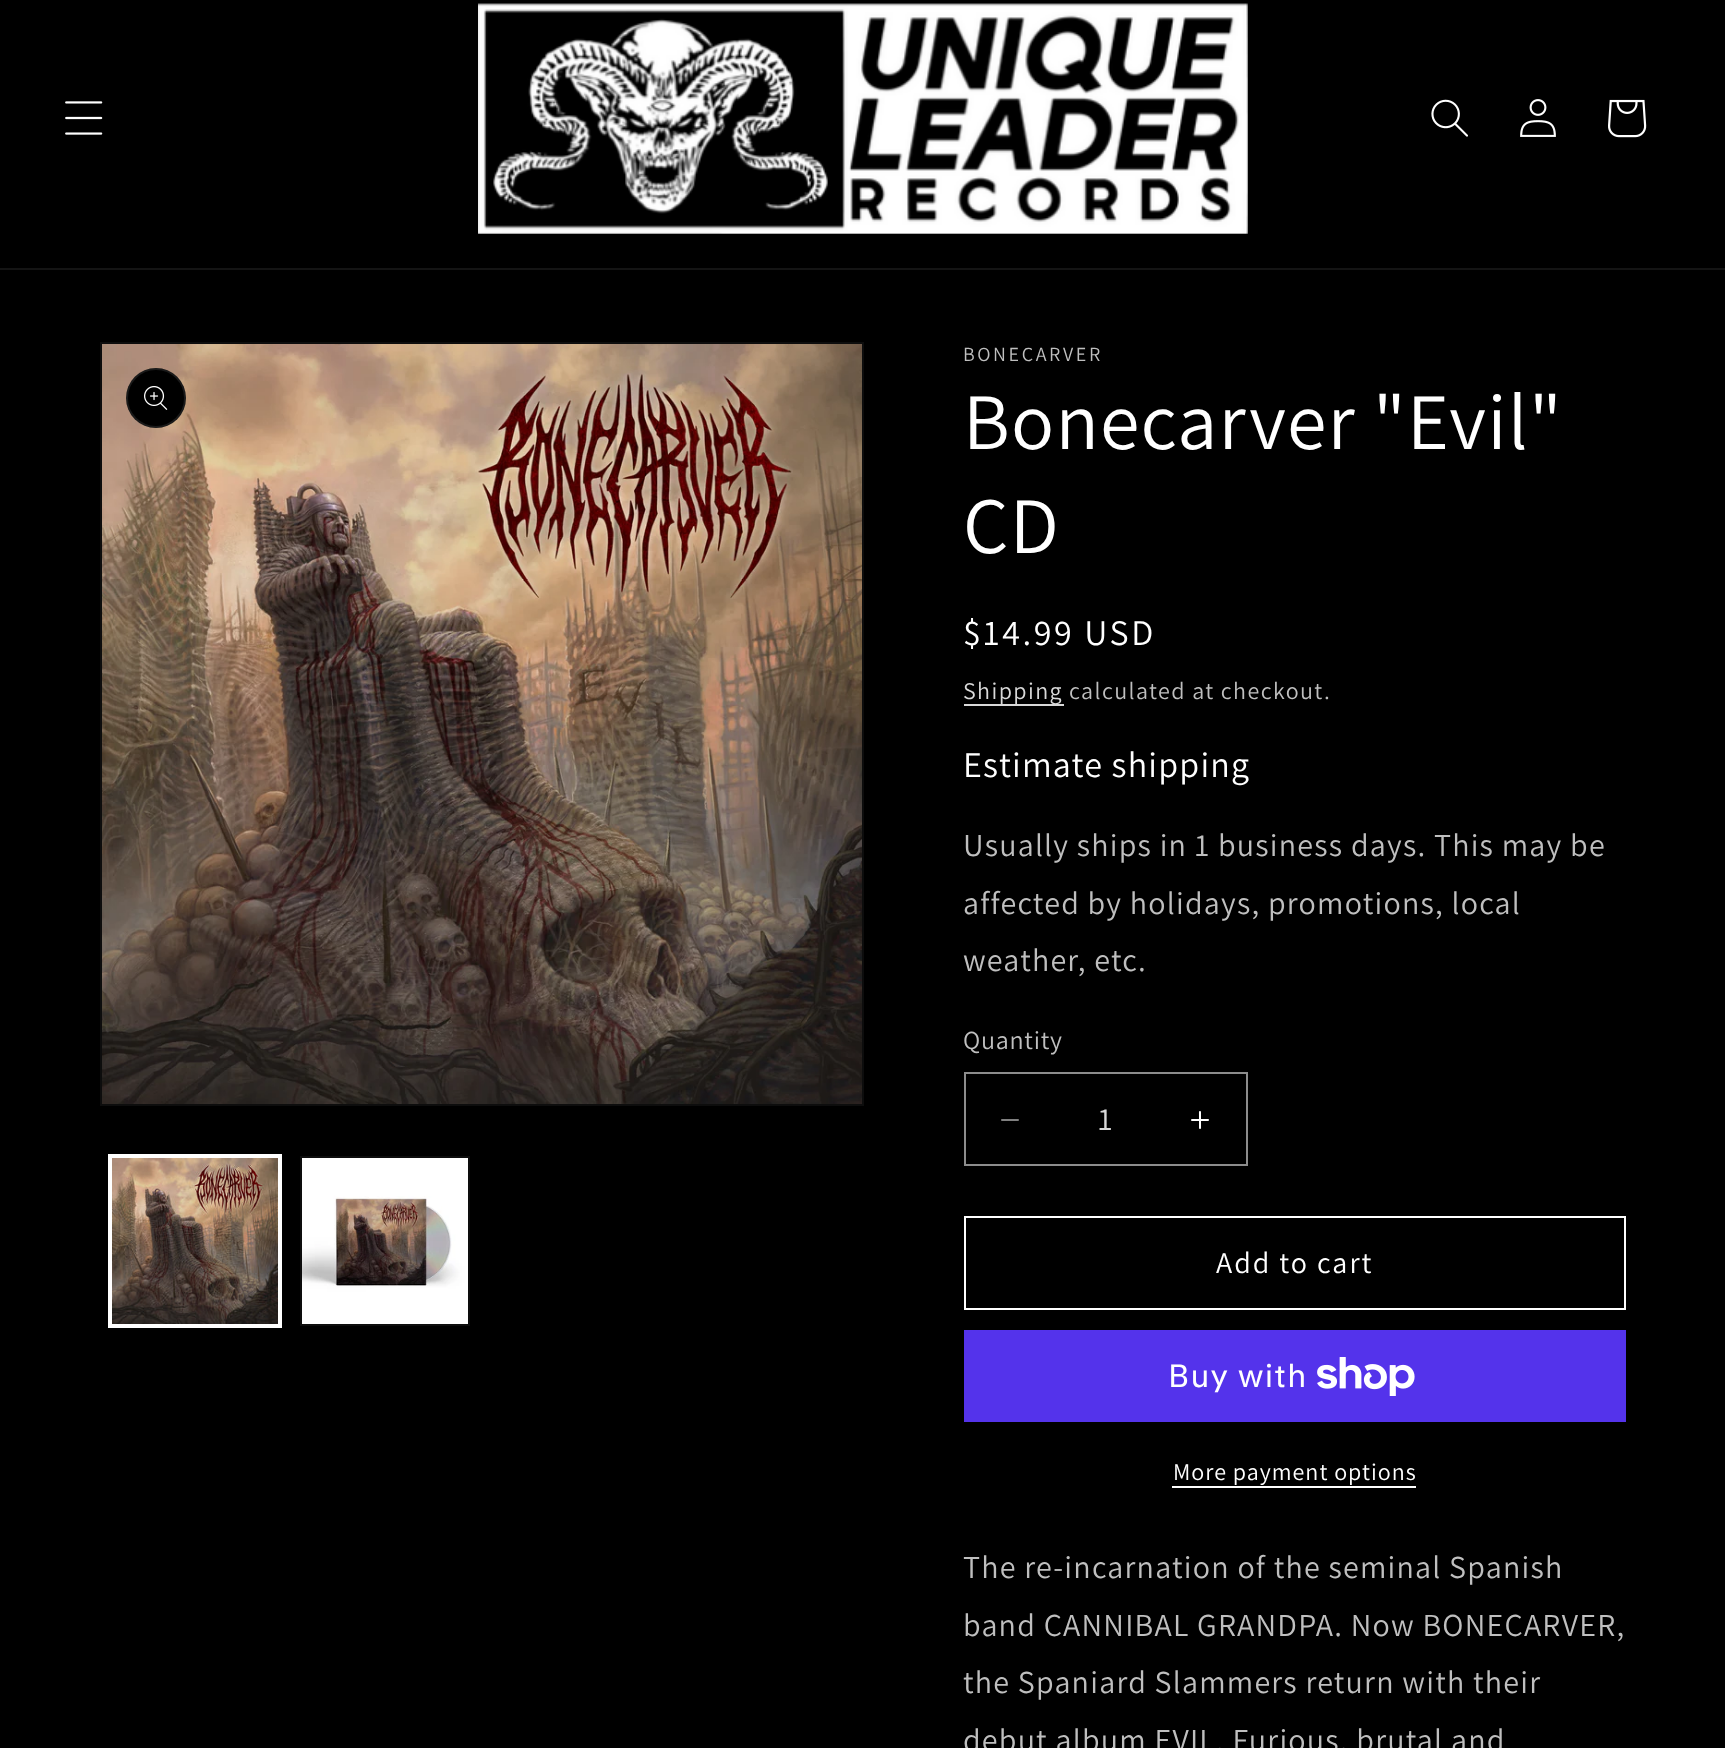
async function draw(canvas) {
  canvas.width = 1725;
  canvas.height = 1748;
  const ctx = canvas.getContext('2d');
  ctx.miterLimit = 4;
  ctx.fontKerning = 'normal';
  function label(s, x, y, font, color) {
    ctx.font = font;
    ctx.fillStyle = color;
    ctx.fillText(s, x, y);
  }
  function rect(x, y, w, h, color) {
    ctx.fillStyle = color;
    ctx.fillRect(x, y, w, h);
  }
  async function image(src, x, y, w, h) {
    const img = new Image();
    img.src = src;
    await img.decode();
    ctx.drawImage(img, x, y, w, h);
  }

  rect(0, 0, 1725, 1748, '#000');
  rect(0, 268, 1725, 2, '#141414');
  await image('assets/img1.png', 65, 101, 38, 34);
  await image('assets/img2.png', 478, 3, 770, 231);
  await image('assets/img3.png', 1431, 99, 37, 38);
  await image('assets/img4.png', 1520, 99, 36, 38);
  await image('assets/img5.png', 1608, 99, 39, 39);
  ctx.strokeStyle = '#0d0d0d';
  ctx.lineWidth = 2;
  ctx.strokeRect(101, 343, 762, 762);
  await image('assets/img6.png', 102, 344, 760, 760);
  ctx.fillStyle = '#000';
  ctx.beginPath();
  ctx.arc(156, 398, 30, 0, 2 * Math.PI);
  ctx.fill();
  ctx.beginPath();
  ctx.arc(156, 398, 29, 0, 2 * Math.PI);
  ctx.strokeStyle = '#ffffff1a';
  ctx.stroke();
  await image('assets/img7.png', 144, 386, 24, 24);
  ctx.strokeStyle = '#fff';
  ctx.strokeRect(109, 1155, 172, 172);
  ctx.strokeRect(111, 1157, 168, 168);
  await image('assets/img8.png', 112, 1158, 166, 166);
  ctx.strokeStyle = '#0d0d0d';
  ctx.strokeRect(301, 1157, 168, 168);
  await image('assets/img9.png', 302, 1158, 166, 166);
  ctx.letterSpacing = '2.6px';
  label('BONECARVER', 963, 361, '20px Assistant', '#bfbfbf');
  ctx.letterSpacing = '1.2px';
  label('Bonecarver "Evil"', 963, 449, '80px Assistant', '#fff');
  label('CD', 963, 553, '80px Assistant', '#fff');
  ctx.letterSpacing = '2.6px';
  label('$14.99 USD', 963, 645, '36px Assistant', '#fff');
  rect(964, 704, 100, 2, '#d9d9d9');
  ctx.letterSpacing = '1.4px';
  label('Shipping', 963, 699, '24px Assistant', '#d9d9d9');
  label('calculated at checkout.', 1069, 699, '24px Assistant', '#bfbfbf');
  ctx.letterSpacing = '1.2px';
  label('Estimate shipping', 963, 777, '36px Assistant', '#fff');
  label('Usually ships in 1 business days. This may be', 963, 856, '32px Assistant', '#bfbfbf');
  label('affected by holidays, promotions, local', 963, 914, '32px Assistant', '#bfbfbf');
  label('weather, etc.', 963, 971, '32px Assistant', '#bfbfbf');
  ctx.letterSpacing = '0.75px';
  label('Quantity', 963, 1049, '26px Assistant', '#bfbfbf');
  await image('assets/img10.png', 1001, 1119, 18, 2);
  await image('assets/img11.png', 1191, 1111, 18, 18);
  ctx.strokeStyle = '#8c8c8c';
  ctx.strokeRect(965, 1073, 282, 92);
  ctx.letterSpacing = '0px';
  label('1', 1098, 1130, '32px Assistant', '#d9d9d9');
  ctx.strokeStyle = '#fff';
  ctx.strokeRect(965, 1217, 660, 92);
  ctx.letterSpacing = '2px';
  label('Add to cart', 1216, 1273, '30px Assistant', '#fff');
  rect(964, 1330, 662, 92, '#5433eb');
  ctx.letterSpacing = '1.2px';
  label('Buy with', 1168, 1387, '32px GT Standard', '#fff');
  await image('assets/img12.png', 1317, 1357, 98, 39);
  ctx.letterSpacing = '1px';
  label('More payment options', 1173, 1480, '24px Assistant', '#fff');
  rect(1172, 1486, 244, 2, '#fff');
  ctx.letterSpacing = '1.2px';
  label('The re-incarnation of the seminal Spanish', 963, 1578, '32px Assistant', '#bfbfbf');
  label('band CANNIBAL GRANDPA. Now BONECARVER,', 963, 1636, '32px Assistant', '#bfbfbf');
  label('the Spaniard Slammers return with their', 963, 1693, '32px Assistant', '#bfbfbf');
  label('debut album EVIL. Furious, brutal and', 963, 1751, '32px Assistant', '#bfbfbf');
}

draw(document.querySelector('canvas'));
